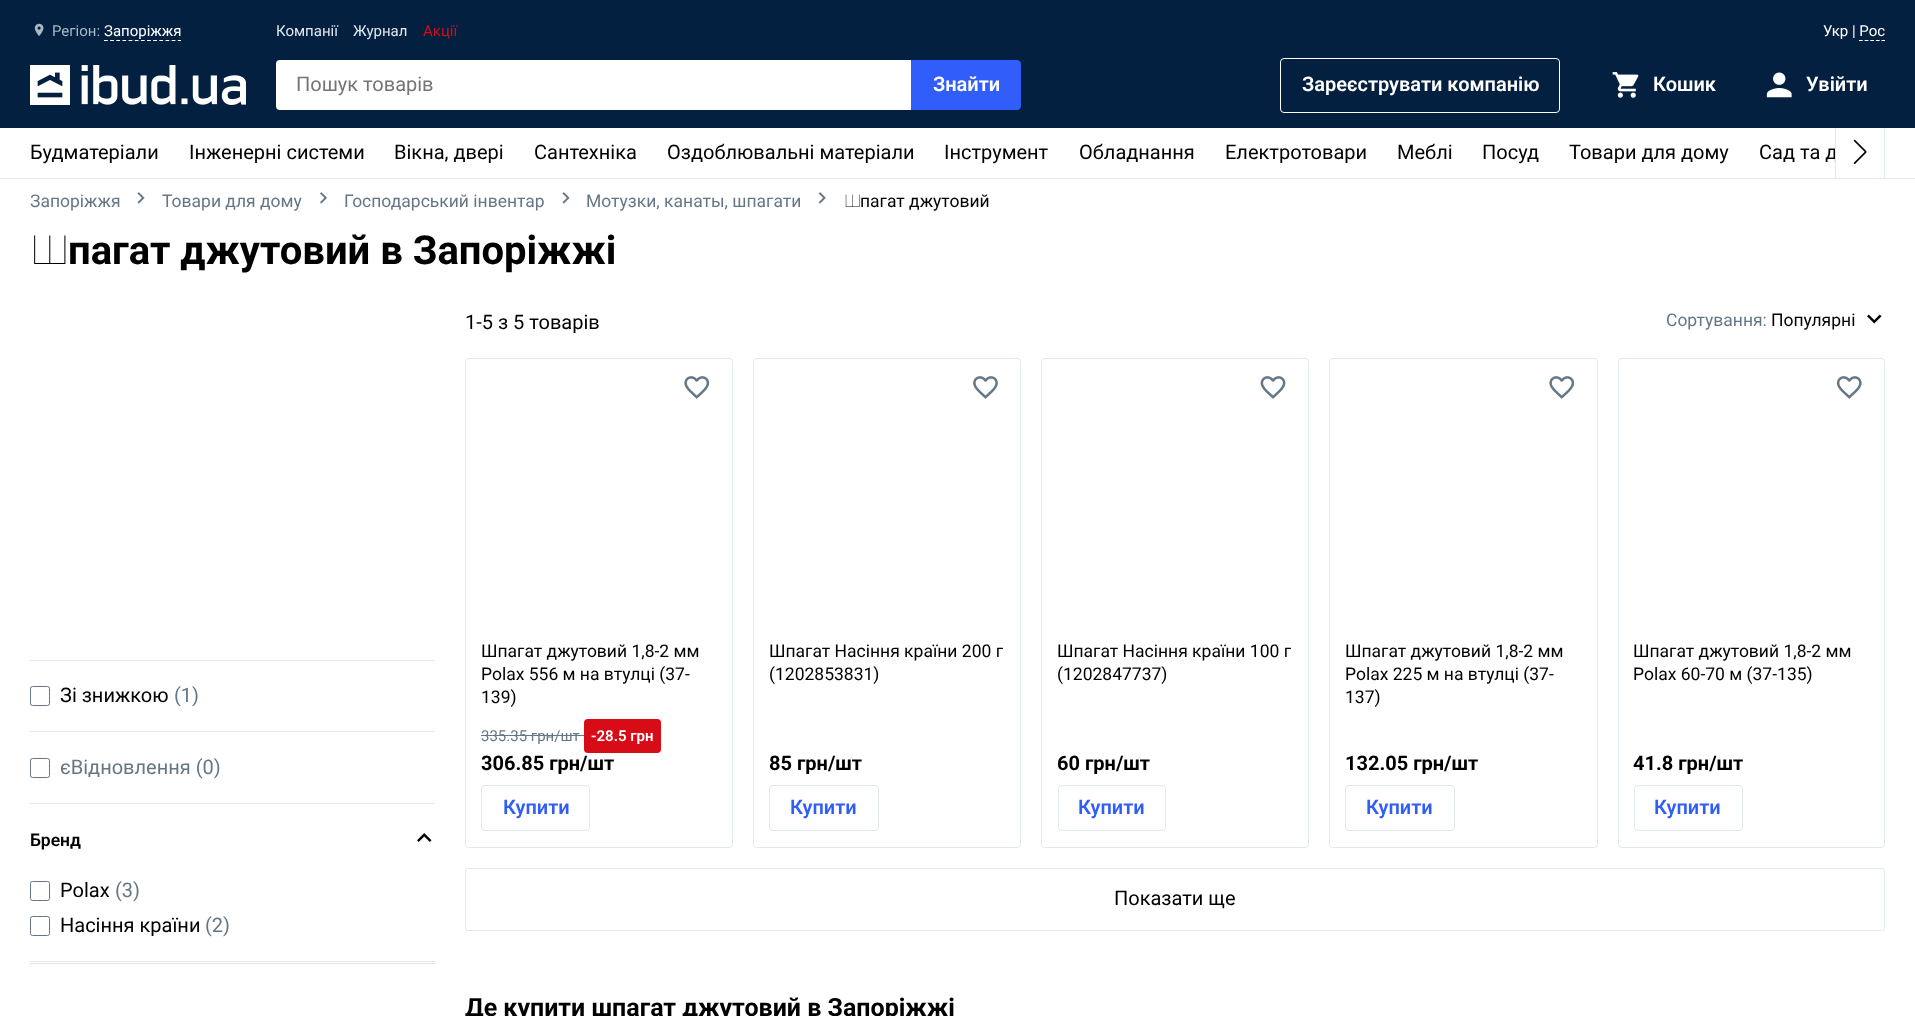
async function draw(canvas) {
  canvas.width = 1915;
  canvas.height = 1016;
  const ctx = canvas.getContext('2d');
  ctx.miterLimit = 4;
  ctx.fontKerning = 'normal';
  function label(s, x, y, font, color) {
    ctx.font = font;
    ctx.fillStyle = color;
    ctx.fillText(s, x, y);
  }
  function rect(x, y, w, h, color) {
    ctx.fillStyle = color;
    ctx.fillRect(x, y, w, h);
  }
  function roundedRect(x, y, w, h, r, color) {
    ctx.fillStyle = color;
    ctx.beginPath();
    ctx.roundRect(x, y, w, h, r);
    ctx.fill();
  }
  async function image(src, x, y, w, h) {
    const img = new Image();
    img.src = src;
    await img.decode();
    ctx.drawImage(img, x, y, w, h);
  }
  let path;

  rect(0, 0, 1915, 1016, '#fff');
  rect(0, 0, 1915, 128, '#042040');
  await image('assets/img1.png', 34, 23, 10, 13);
  label('Регіон:', 52, 36, '15px Roboto', '#aab8c2');
  path = new Path2D('M104 40.5H181');
  ctx.strokeStyle = '#fff';
  ctx.lineWidth = 1.2;
  ctx.setLineDash([3.75, 2.4]);
  ctx.stroke(path);
  label('Запоріжжя', 104, 36, '15px Roboto', '#fff');
  label('Компанії', 276, 36, '15px Roboto', '#e1e8ed');
  label('Журнал', 353, 36, '15px Roboto', '#e1e8ed');
  label('Акції', 423, 36, '15px Roboto', '#d70c17');
  label('Укр | Рос', 1823, 36, '15px Roboto', '#fff');
  path = new Path2D('M1859 40.5H1885');
  ctx.setLineDash([3.75, 1.88]);
  ctx.stroke(path);
  await image('assets/img2.png', 30, 65, 216, 40);
  ctx.beginPath();
  ctx.roundRect(276, 60, 635, 50, [4, 0, 0, 4]);
  ctx.fill();
  label('Пошук товарів', 296, 91, '20px Roboto', '#757575');
  ctx.fillStyle = '#315efb';
  ctx.beginPath();
  ctx.roundRect(911.5, 60.5, 109, 49, [0, 3.5, 3.5, 0]);
  ctx.fill();
  ctx.strokeStyle = '#315efb';
  ctx.lineWidth = 1;
  ctx.setLineDash([]);
  ctx.stroke();
  label('Знайти', 933, 91, '600 20px Roboto', '#fff');
  ctx.beginPath();
  ctx.roundRect(1280.5, 58.5, 279, 54, 3.5);
  ctx.strokeStyle = '#fff';
  ctx.stroke();
  label('Зарeєструвати компанію', 1302, 91, '600 20px Roboto', '#fff');
  await image('assets/img3.png', 1612, 72, 27, 26);
  label('Кошик', 1653, 91, '600 20px Roboto', '#fff');
  await image('assets/img4.png', 1766, 72, 26, 26);
  label('Увійти', 1806, 91, '600 20px Roboto', '#fff');
  label('Будматеріали', 30, 159, '20px Roboto', '#000');
  label('Інженерні системи', 189, 159, '20px Roboto', '#000');
  label('Вікна, двері', 394, 159, '20px Roboto', '#000');
  label('Сантехніка', 534, 159, '20px Roboto', '#000');
  label('Оздоблювальні матеріали', 667, 159, '20px Roboto', '#000');
  label('Інструмент', 944, 159, '20px Roboto', '#000');
  label('Обладнання', 1079, 159, '20px Roboto', '#000');
  label('Електротовари', 1225, 159, '20px Roboto', '#000');
  label('Меблі', 1397, 159, '20px Roboto', '#000');
  label('Посуд', 1482, 159, '20px Roboto', '#000');
  label('Товари для дому', 1569, 159, '20px Roboto', '#000');
  label('Сад та д', 1759, 159, '20px Roboto', '#000');
  rect(1836, 157, 1, 6, '#fff');
  rect(1884, 128, 1, 50, '#e1e8ed');
  rect(1835, 128, 1, 50, '#e1e8ed');
  await image('assets/img5.png', 1853, 139, 14, 25);
  rect(0, 178, 1915, 1, '#e1e8ed');
  label('Запоріжжя', 30, 207, '17.5px Roboto', '#657786');
  await image('assets/img6.png', 137, 192, 8, 12);
  label('Товари для дому', 162, 207, '17.5px Roboto', '#657786');
  await image('assets/img7.png', 320, 192, 7, 12);
  label('Господарський інвентар', 344, 207, '17.5px Roboto', '#657786');
  await image('assets/img6.png', 562, 192, 8, 12);
  label('Мотузки, канаты, шпагати', 586, 207, '17.5px Roboto', '#657786');
  await image('assets/img8.png', 818, 192, 8, 12);
  label('Ш', 844, 207, '100 17.5px Noto Sans', '#000');
  label('пагат джутовий', 860, 207, '17.5px Roboto', '#000');
  label('Ш', 30, 264, '100 40px Noto Sans', '#000');
  label('пагат джутовий в Запоріжжі', 68, 264, 'bold 40px Roboto', '#000');
  rect(30, 660, 405, 1, '#e1e8ed');
  rect(30, 963, 405, 1, '#e1e8ed');
  rect(30, 731, 405, 1, '#e1e8ed');
  ctx.beginPath();
  ctx.roundRect(30.5, 686.5, 19, 19, 2);
  ctx.strokeStyle = '#657786';
  ctx.stroke();
  label('Зі знижкою', 60, 702, '20px Roboto', '#000');
  label('(1)', 174, 702, '20px Roboto', '#657786');
  rect(30, 803, 405, 1, '#e1e8ed');
  ctx.beginPath();
  ctx.roundRect(30.5, 758.5, 19, 19, 2);
  ctx.stroke();
  label('єВідновлення (0)', 60, 774, '20px Roboto', '#657786');
  rect(30, 961, 405, 1, '#e1e8ed');
  label('Бренд', 30, 846, '600 17.5px Roboto', '#000');
  await image('assets/img9.png', 417, 833, 15, 9);
  ctx.beginPath();
  ctx.roundRect(30.5, 881.5, 19, 19, 2);
  ctx.stroke();
  label('Polax', 60, 897, '20px Roboto', '#000');
  label('(3)', 115, 897, '20px Roboto', '#657786');
  ctx.beginPath();
  ctx.roundRect(30.5, 916.5, 19, 19, 2);
  ctx.stroke();
  label('Насіння країни', 60, 932, '20px Roboto', '#000');
  label('(2)', 205, 932, '20px Roboto', '#657786');
  label('1-5 з 5 товарів', 465, 329, '20px Roboto', '#000');
  label('Сортування:', 1666, 326, '17.5px Roboto', '#657786');
  label('Популярні', 1771, 326, '17.5px Roboto', '#000');
  await image('assets/img10.png', 1867, 314, 15, 10);
  ctx.beginPath();
  ctx.roundRect(465.5, 358.5, 267, 489, 3.5);
  ctx.strokeStyle = '#e1e8ed';
  ctx.stroke();
  await image('assets/img11.png', 684, 376, 26, 23);
  label('Шпагат джутовий 1,8-2 мм', 481, 657, '17.5px Roboto', '#000');
  label('Polax 556 м на втулці (37-', 481, 680, '17.5px Roboto', '#000');
  label('139)', 481, 703, '17.5px Roboto', '#000');
  label('335.35 грн/шт', 481, 741, '15px Roboto', '#657786');
  rect(481, 735, 103, 1, '#657786');
  roundedRect(584, 719, 77, 34, 4, '#d70c17');
  label('-28.5 грн', 591, 741, '600 15px Roboto', '#fff');
  label('306.85 грн/шт', 481, 770, 'bold 20px Roboto', '#000');
  ctx.beginPath();
  ctx.roundRect(481.5, 785.5, 108, 45, 3.5);
  ctx.stroke();
  label('Купити', 503, 814, '600 20px Roboto', '#315efb');
  ctx.beginPath();
  ctx.roundRect(753.5, 358.5, 267, 489, 3.5);
  ctx.stroke();
  await image('assets/img12.png', 973, 376, 25, 23);
  label('Шпагат Насіння країни 200 г', 769, 657, '17.5px Roboto', '#000');
  label('(1202853831)', 769, 680, '17.5px Roboto', '#000');
  label('85 грн/шт', 769, 770, 'bold 20px Roboto', '#000');
  ctx.beginPath();
  ctx.roundRect(769.5, 785.5, 109, 45, 3.5);
  ctx.stroke();
  label('Купити', 790, 814, '600 20px Roboto', '#315efb');
  ctx.beginPath();
  ctx.roundRect(1041.5, 358.5, 267, 489, 3.5);
  ctx.stroke();
  await image('assets/img13.png', 1260, 376, 26, 23);
  label('Шпагат Насіння країни 100 г', 1057, 657, '17.5px Roboto', '#000');
  label('(1202847737)', 1057, 680, '17.5px Roboto', '#000');
  label('60 грн/шт', 1057, 770, 'bold 20px Roboto', '#000');
  ctx.beginPath();
  ctx.roundRect(1058.5, 785.5, 107, 45, 3.5);
  ctx.stroke();
  label('Купити', 1078, 814, '600 20px Roboto', '#315efb');
  ctx.beginPath();
  ctx.roundRect(1329.5, 358.5, 268, 489, 3.5);
  ctx.stroke();
  await image('assets/img11.png', 1549, 376, 26, 23);
  label('Шпагат джутовий 1,8-2 мм', 1345, 657, '17.5px Roboto', '#000');
  label('Polax 225 м на втулці (37-', 1345, 680, '17.5px Roboto', '#000');
  label('137)', 1345, 703, '17.5px Roboto', '#000');
  label('132.05 грн/шт', 1345, 770, 'bold 20px Roboto', '#000');
  ctx.beginPath();
  ctx.roundRect(1345.5, 785.5, 109, 45, 3.5);
  ctx.stroke();
  label('Купити', 1366, 814, '600 20px Roboto', '#315efb');
  ctx.beginPath();
  ctx.roundRect(1618.5, 358.5, 266, 489, 3.5);
  ctx.stroke();
  await image('assets/img14.png', 1836, 376, 26, 23);
  label('Шпагат джутовий 1,8-2 мм', 1633, 657, '17.5px Roboto', '#000');
  label('Polax 60-70 м (37-135)', 1633, 680, '17.5px Roboto', '#000');
  label('41.8 грн/шт', 1633, 770, 'bold 20px Roboto', '#000');
  ctx.beginPath();
  ctx.roundRect(1634.5, 785.5, 108, 45, 3.5);
  ctx.stroke();
  label('Купити', 1654, 814, '600 20px Roboto', '#315efb');
  ctx.beginPath();
  ctx.roundRect(465.5, 868.5, 1419, 62, 2);
  ctx.stroke();
  label('Показати ще', 1114, 905, '20px Roboto', '#000');
  label('Де купити шпагат джутовий в Запоріжжі', 465, 1016, 'bold 25px Roboto', '#000');
}

draw(document.querySelector('canvas'));
